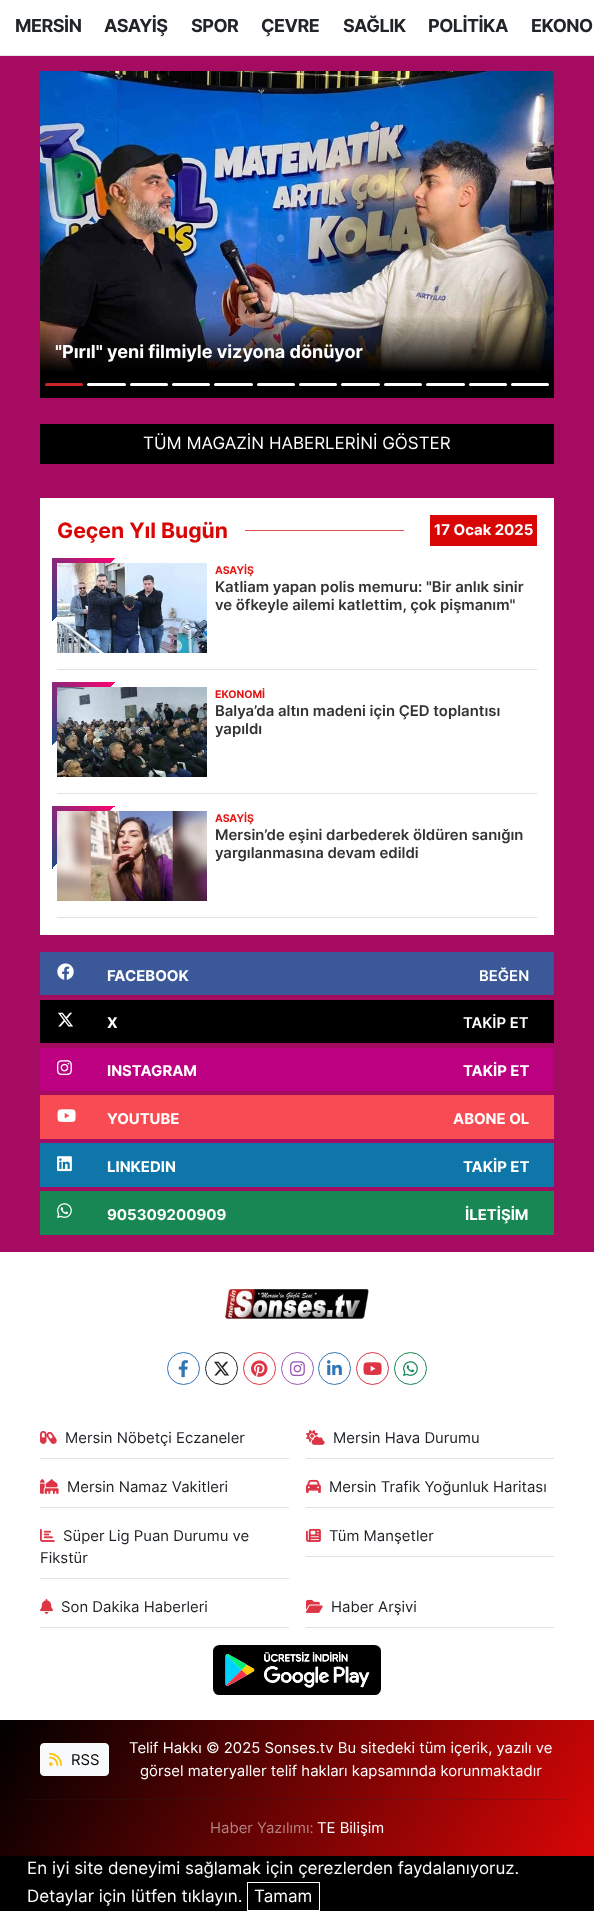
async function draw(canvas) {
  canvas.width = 594;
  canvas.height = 1911;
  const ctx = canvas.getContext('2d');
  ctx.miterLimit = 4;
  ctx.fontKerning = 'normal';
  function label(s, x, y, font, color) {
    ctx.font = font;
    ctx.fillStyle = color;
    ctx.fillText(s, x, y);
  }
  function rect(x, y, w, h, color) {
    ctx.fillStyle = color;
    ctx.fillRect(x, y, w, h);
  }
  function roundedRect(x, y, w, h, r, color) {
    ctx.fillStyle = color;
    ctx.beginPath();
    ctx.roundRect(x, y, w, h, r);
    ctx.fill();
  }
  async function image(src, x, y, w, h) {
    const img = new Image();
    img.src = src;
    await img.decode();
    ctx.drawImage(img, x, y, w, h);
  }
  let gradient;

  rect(0, 0, 594, 1911, '#fff');
  rect(0, 55, 594, 1, '#e6e6e6');
  ctx.letterSpacing = '-0.5px';
  label('MERSİN', 15, 32, 'bold 18px Inter', '#212529');
  label('ASAYİŞ', 104, 32, 'bold 18px Inter', '#212529');
  label('SPOR', 191, 32, 'bold 18px Inter', '#212529');
  label('ÇEVRE', 261, 32, 'bold 18px Inter', '#212529');
  label('SAĞLIK', 343, 32, 'bold 18px Inter', '#212529');
  label('POLİTİKA', 428, 32, 'bold 18px Inter', '#212529');
  label('EKONO', 531, 32, 'bold 18px Inter', '#212529');
  rect(0, 56, 594, 1196, '#a50b60');
  rect(40, 372, 514, 26, '#000');
  await image('assets/img1.png', 40, 71, 514, 301);
  ctx.letterSpacing = '0px';
  label('"Pırıl" yeni filmiyle vizyona dönüyor', 55, 358, 'bold 18px Inter', '#fff');
  roundedRect(45, 383, 38, 3, 1.5, '#ca2527');
  roundedRect(87, 383, 39, 3, 1.5, '#fff');
  roundedRect(130, 383, 38, 3, 1.5, '#fff');
  roundedRect(172, 383, 38, 3, 1.5, '#fff');
  roundedRect(214, 383, 39, 3, 1.5, '#fff');
  roundedRect(257, 383, 38, 3, 1.5, '#fff');
  roundedRect(299, 383, 38, 3, 1.5, '#fff');
  roundedRect(341, 383, 39, 3, 1.5, '#fff');
  roundedRect(384, 383, 38, 3, 1.5, '#fff');
  roundedRect(426, 383, 39, 3, 1.5, '#fff');
  roundedRect(469, 383, 38, 3, 1.5, '#fff');
  roundedRect(511, 383, 38, 3, 1.5, '#fff');
  rect(40, 424, 514, 40, '#000');
  label('TÜM MAGAZİN HABERLERİNİ GÖSTER', 143, 449, '17px Inter', '#fff');
  rect(40, 498, 514, 437, '#fff');
  label('Geçen Yıl Bugün', 57, 538, 'bold 21.25px Inter', '#d90606');
  rect(245, 530, 159, 1, '#e45151');
  rect(430, 515, 107, 31, '#d90606');
  label('17 Ocak 2025', 434, 535, 'bold 14.9px Inter', '#fff');
  rect(57, 669, 480, 1, '#dee2e6');
  gradient = ctx.createLinearGradient(52, 621, 115, 558);
  gradient.addColorStop(0, '#194c82');
  gradient.addColorStop(1, '#ff0270');
  ctx.fillStyle = gradient;
  ctx.fillRect(52, 558, 63, 63);
  gradient = ctx.createLinearGradient(115, 621, 52, 558);
  gradient.addColorStop(0.5, '#fff');
  gradient.addColorStop(0.5, '#ffffff00');
  ctx.fillStyle = gradient;
  ctx.fillRect(53, 559, 62, 62);
  await image('assets/img2.png', 57, 563, 150, 90);
  label('ASAYİŞ', 215, 574, 'bold 10.5px Inter', '#e41414');
  label('Katliam yapan polis memuru: "Bir anlık sinir', 215, 592, '600 14.9px Inter', '#333');
  label('ve öfkeyle ailemi katlettim, çok pişmanım"', 215, 610, '600 14.9px Inter', '#333');
  rect(57, 793, 480, 1, '#dee2e6');
  gradient = ctx.createLinearGradient(52, 745, 115, 682);
  gradient.addColorStop(0, '#194c82');
  gradient.addColorStop(1, '#ff0270');
  ctx.fillStyle = gradient;
  ctx.fillRect(52, 682, 63, 63);
  gradient = ctx.createLinearGradient(115, 745, 52, 682);
  gradient.addColorStop(0.5, '#fff');
  gradient.addColorStop(0.5, '#ffffff00');
  ctx.fillStyle = gradient;
  ctx.fillRect(53, 683, 62, 62);
  await image('assets/img3.png', 57, 687, 150, 90);
  label('EKONOMİ', 215, 698, 'bold 10.5px Inter', '#e41414');
  label('Balya’da altın madeni için ÇED toplantısı', 215, 716, '600 14.9px Inter', '#333');
  label('yapıldı', 215, 734, '600 14.9px Inter', '#333');
  rect(57, 917, 480, 1, '#dee2e6');
  gradient = ctx.createLinearGradient(52, 869, 115, 806);
  gradient.addColorStop(0, '#194c82');
  gradient.addColorStop(1, '#ff0270');
  ctx.fillStyle = gradient;
  ctx.fillRect(52, 806, 63, 63);
  gradient = ctx.createLinearGradient(115, 869, 52, 806);
  gradient.addColorStop(0.5, '#fff');
  gradient.addColorStop(0.5, '#ffffff00');
  ctx.fillStyle = gradient;
  ctx.fillRect(53, 807, 62, 62);
  await image('assets/img4.png', 57, 811, 150, 90);
  label('ASAYİŞ', 215, 822, 'bold 10.5px Inter', '#e41414');
  label('Mersin’de eşini darbederek öldüren sanığın', 215, 840, '600 14.9px Inter', '#333');
  label('yargılanmasına devam edildi', 215, 858, '600 14.9px Inter', '#333');
  rect(40, 952, 514, 43, '#3b5998');
  await image('assets/img5.png', 57, 963, 17, 17);
  label('FACEBOOK', 107, 981, 'bold 14.9px Inter', '#fff');
  label('BEĞEN', 479, 981, '600 14.9px Inter', '#fff');
  rect(40, 1000, 514, 43, '#000');
  await image('assets/img6.png', 58, 1012, 15, 15);
  label('X', 107, 1028, 'bold 14.9px Inter', '#fff');
  label('TAKİP ET', 463, 1028, '600 14.9px Inter', '#fff');
  rect(40, 1048, 514, 43, '#bd0082');
  await image('assets/img7.png', 57, 1060, 15, 16);
  label('INSTAGRAM', 107, 1076, 'bold 14.9px Inter', '#fff');
  label('TAKİP ET', 463, 1076, 'bold 14.9px Inter', '#fff');
  rect(40, 1095, 514, 44, '#f74c53');
  await image('assets/img8.png', 57, 1109, 19, 13);
  label('YOUTUBE', 107, 1124, 'bold 14.9px Inter', '#fff');
  label('ABONE OL', 453, 1124, 'bold 14.9px Inter', '#fff');
  rect(40, 1143, 514, 44, '#0e76a8');
  await image('assets/img9.png', 57, 1156, 15, 16);
  label('LINKEDIN', 107, 1172, 'bold 14.9px Inter', '#fff');
  label('TAKİP ET', 463, 1172, 'bold 14.9px Inter', '#fff');
  rect(40, 1191, 514, 44, '#198754');
  await image('assets/img10.png', 57, 1203, 15, 15);
  label('905309200909', 107, 1220, 'bold 14.9px Inter', '#fff');
  label('İLETİŞİM', 465, 1220, 'bold 14.9px Inter', '#fff');
  await image('assets/img11.png', 224, 1289, 145, 30);
  ctx.beginPath();
  ctx.arc(183.5, 1368.5, 16, 0, 2 * Math.PI);
  ctx.strokeStyle = '#3276b3';
  ctx.stroke();
  await image('assets/img12.png', 178, 1360, 10, 18);
  ctx.beginPath();
  ctx.arc(221.5, 1368.5, 16, 0, 2 * Math.PI);
  ctx.strokeStyle = '#212529';
  ctx.stroke();
  await image('assets/img13.png', 214, 1361, 15, 15);
  ctx.beginPath();
  ctx.arc(259.5, 1368.5, 16, 0, 2 * Math.PI);
  ctx.strokeStyle = '#dc3545';
  ctx.stroke();
  await image('assets/img14.png', 251, 1360, 17, 17);
  ctx.beginPath();
  ctx.arc(297.5, 1368.5, 16, 0, 2 * Math.PI);
  ctx.strokeStyle = '#9b59b6';
  ctx.stroke();
  await image('assets/img15.png', 290, 1361, 15, 16);
  ctx.beginPath();
  ctx.arc(334.5, 1368.5, 16, 0, 2 * Math.PI);
  ctx.strokeStyle = '#3276b3';
  ctx.stroke();
  await image('assets/img16.png', 327, 1360, 15, 15);
  ctx.beginPath();
  ctx.arc(372.5, 1368.5, 16, 0, 2 * Math.PI);
  ctx.strokeStyle = '#dc3545';
  ctx.stroke();
  await image('assets/img17.png', 363, 1362, 19, 13);
  ctx.beginPath();
  ctx.arc(410.5, 1368.5, 16, 0, 2 * Math.PI);
  ctx.strokeStyle = '#198754';
  ctx.stroke();
  await image('assets/img18.png', 403, 1361, 15, 15);
  rect(40, 1458, 249, 1, '#dee2e6');
  await image('assets/img19.png', 40, 1430, 17, 14);
  label('Mersin Nöbetçi Eczaneler', 65, 1443, '14.9px Inter', '#212529');
  rect(306, 1458, 248, 1, '#dee2e6');
  await image('assets/img20.png', 306, 1430, 19, 15);
  label('Mersin Hava Durumu', 333, 1443, '14.9px Inter', '#212529');
  rect(40, 1507, 249, 1, '#dee2e6');
  await image('assets/img21.png', 40, 1479, 19, 15);
  label('Mersin Namaz Vakitleri', 67, 1492, '14.9px Inter', '#212529');
  rect(306, 1507, 248, 1, '#dee2e6');
  await image('assets/img22.png', 306, 1479, 15, 14);
  label('Mersin Trafik Yoğunluk Haritası', 329, 1492, '14.9px Inter', '#212529');
  rect(40, 1578, 249, 1, '#dee2e6');
  await image('assets/img23.png', 40, 1529, 15, 13);
  label('Süper Lig Puan Durumu ve', 63, 1541, '14.9px Inter', '#212529');
  label('Fikstür', 40, 1563, '14.9px Inter', '#212529');
  rect(306, 1556, 248, 1, '#dee2e6');
  await image('assets/img24.png', 306, 1528, 15, 14);
  label('Tüm Manşetler', 329, 1541, '14.9px Inter', '#212529');
  rect(40, 1627, 249, 1, '#dee2e6');
  await image('assets/img25.png', 40, 1599, 13, 15);
  label('Son Dakika Haberleri', 61, 1612, '14.9px Inter', '#212529');
  rect(306, 1627, 248, 1, '#dee2e6');
  await image('assets/img26.png', 306, 1599, 17, 14);
  label('Haber Arşivi', 331, 1612, '14.9px Inter', '#212529');
  await image('assets/img27.png', 213, 1645, 168, 50);
  gradient = ctx.createLinearGradient(45, 1642, 549, 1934);
  gradient.addColorStop(0, '#000');
  gradient.addColorStop(1, '#d90606');
  ctx.fillStyle = gradient;
  ctx.fillRect(0, 1720, 594, 136);
  gradient = ctx.createLinearGradient(45, 1642, 549, 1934);
  gradient.addColorStop(0, '#08090a');
  gradient.addColorStop(1, '#ab0e0f');
  ctx.fillStyle = gradient;
  ctx.fillRect(27, 1799, 540, 1);
  ctx.fillStyle = '#f8f9fa';
  ctx.beginPath();
  ctx.roundRect(40.5, 1743.5, 68, 32, 3.5);
  ctx.fill();
  ctx.strokeStyle = '#f8f9fa';
  ctx.stroke();
  await image('assets/img28.png', 49, 1752, 13, 14);
  label('RSS', 71, 1765, '14.9px Inter', '#000');
  label('Telif Hakkı © 2025 Sonses.tv Bu sitedeki tüm içerik, yazılı ve', 129, 1753, '14.9px Inter', '#fff');
  label('görsel materyaller telif hakları kapsamında korunmaktadır', 140, 1776, '14.9px Inter', '#fff');
  label('Haber Yazılımı:', 210, 1833, '14.9px Inter', '#b48181');
  label('TE Bilişim', 317, 1833, '14.9px Inter', '#fff');
  rect(0, 1856, 594, 55, '#000');
  label('En iyi site deneyimi sağlamak için çerezlerden faydalanıyoruz.', 27, 1874, '17px Inter', '#fff');
  label('Detaylar için lütfen tıklayın.', 27, 1902, '17px Inter', '#fff');
  ctx.strokeStyle = '#fff';
  ctx.strokeRect(247.5, 1882.5, 72, 28);
  label('Tamam', 254, 1902, '17px Inter', '#fff');
}

draw(document.querySelector('canvas'));
